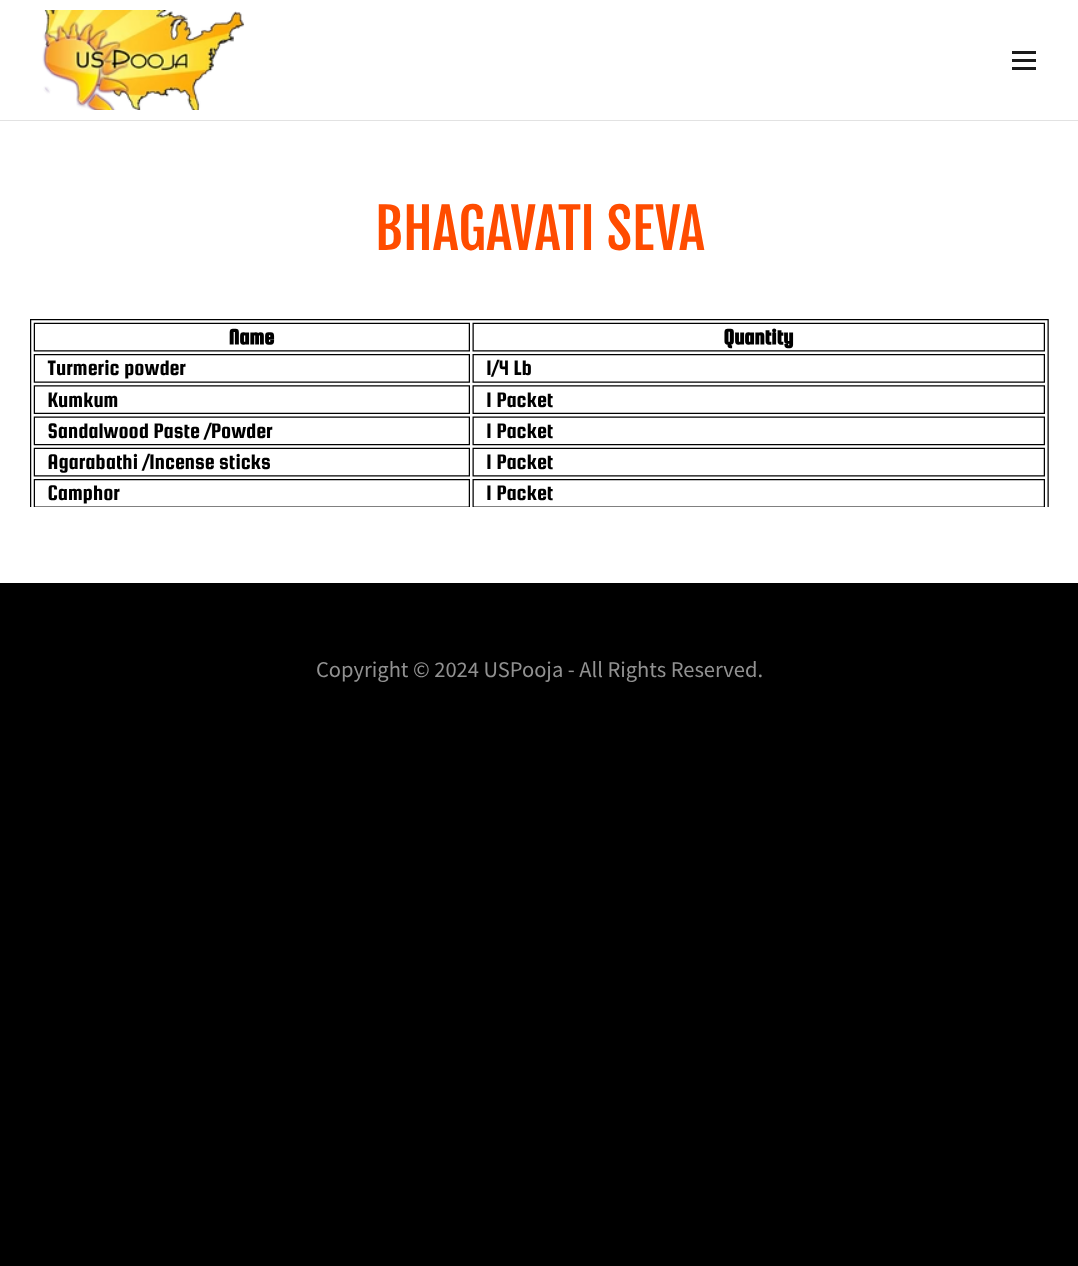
async function draw(canvas) {
  canvas.width = 1078;
  canvas.height = 1266;
  const ctx = canvas.getContext('2d');
  ctx.miterLimit = 4;
  ctx.fontKerning = 'normal';
  function label(s, x, y, font, color) {
    ctx.font = font;
    ctx.fillStyle = color;
    ctx.fillText(s, x, y);
  }
  function rect(x, y, w, h, color) {
    ctx.fillStyle = color;
    ctx.fillRect(x, y, w, h);
  }
  async function image(src, x, y, w, h) {
    const img = new Image();
    img.src = src;
    await img.decode();
    ctx.drawImage(img, x, y, w, h);
  }

  rect(0, 0, 1078, 1266, '#000');
  rect(0, 0, 1078, 120, '#fff');
  await image('assets/img1.png', 42, 10, 203, 100);
  rect(1012, 51, 24, 3, '#1b1b1b');
  rect(1012, 59, 24, 3, '#1b1b1b');
  rect(1012, 67, 24, 3, '#1b1b1b');
  rect(0, 120, 1078, 1, '#e2e2e2');
  rect(0, 121, 1078, 462, '#fff');
  label('BHAGAVATI SEVA', 375, 250, '55px Fjalla One', '#ff4c00');
  await image('assets/img2.png', 30, 319, 1019, 188);
  label('Copyright © 2024 USPooja - All Rights Reserved.', 316, 677, '22.5px Source Sans Pro', '#919191');
}

draw(document.querySelector('canvas'));
